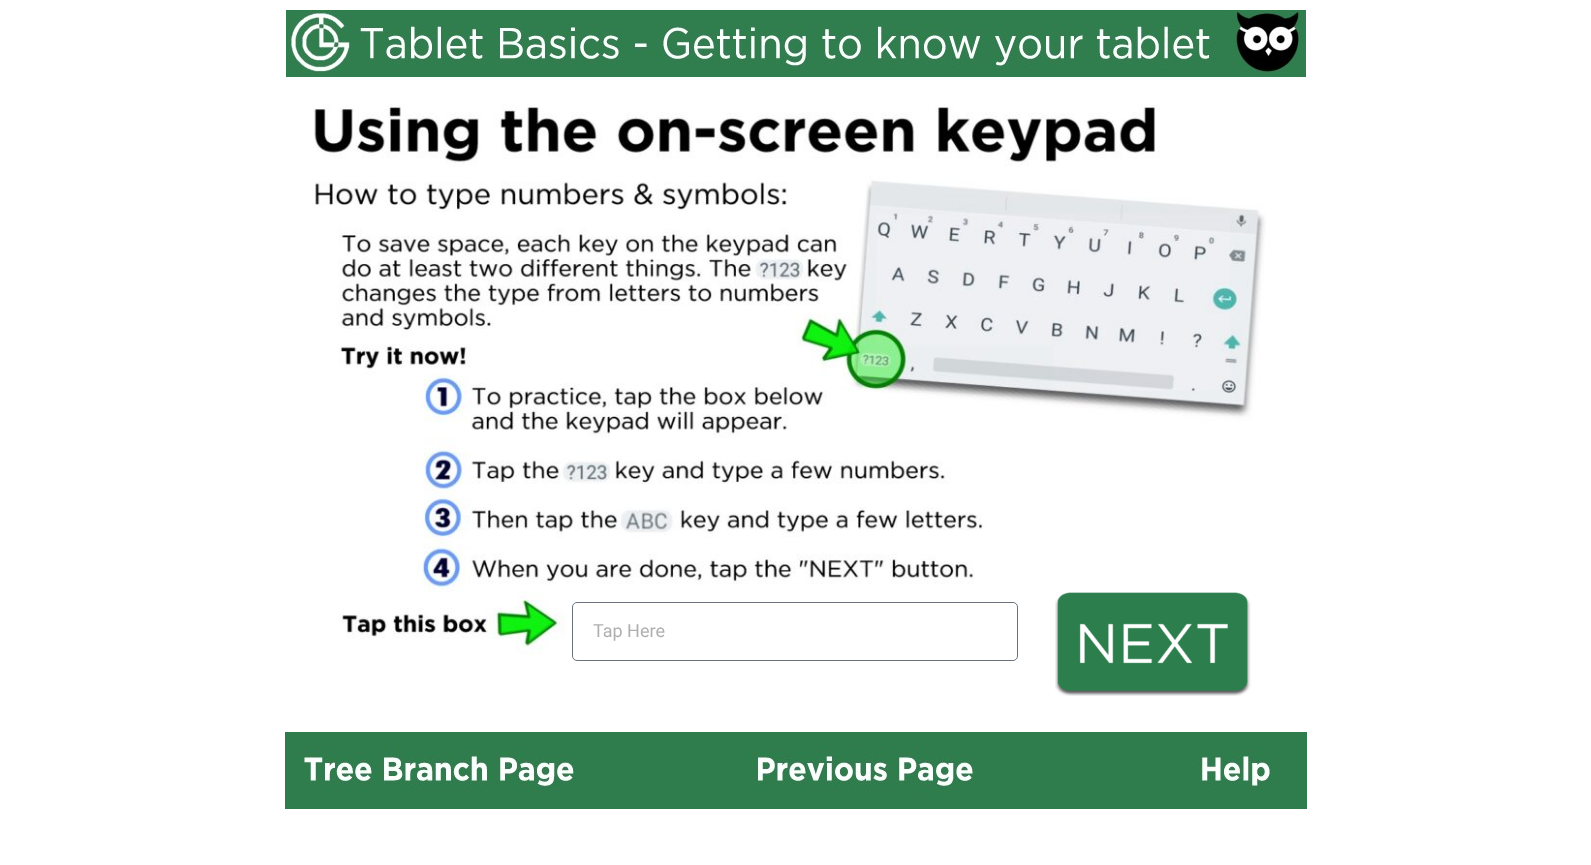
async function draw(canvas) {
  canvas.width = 1591;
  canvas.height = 865;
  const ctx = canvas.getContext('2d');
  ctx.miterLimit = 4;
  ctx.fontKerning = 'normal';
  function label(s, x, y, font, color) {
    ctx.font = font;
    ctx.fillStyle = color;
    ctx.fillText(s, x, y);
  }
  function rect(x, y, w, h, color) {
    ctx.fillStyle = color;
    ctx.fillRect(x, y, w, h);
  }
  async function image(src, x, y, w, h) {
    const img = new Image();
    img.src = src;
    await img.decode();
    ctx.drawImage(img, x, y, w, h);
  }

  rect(0, 0, 1591, 865, '#fff');
  await image('assets/img1.png', 286, 10, 1020, 67);
  await image('assets/img2.png', 314, 104, 952, 551);
  ctx.beginPath();
  ctx.roundRect(572.5, 602.5, 445, 58, 4.5);
  ctx.strokeStyle = '#69727d';
  ctx.stroke();
  label('Tap Here', 593, 637, '18px Roboto', '#afafaf');
  await image('assets/img3.png', 1055, 592, 196, 104);
  await image('assets/img4.png', 285, 732, 1022, 77);
}

draw(document.querySelector('canvas'));
